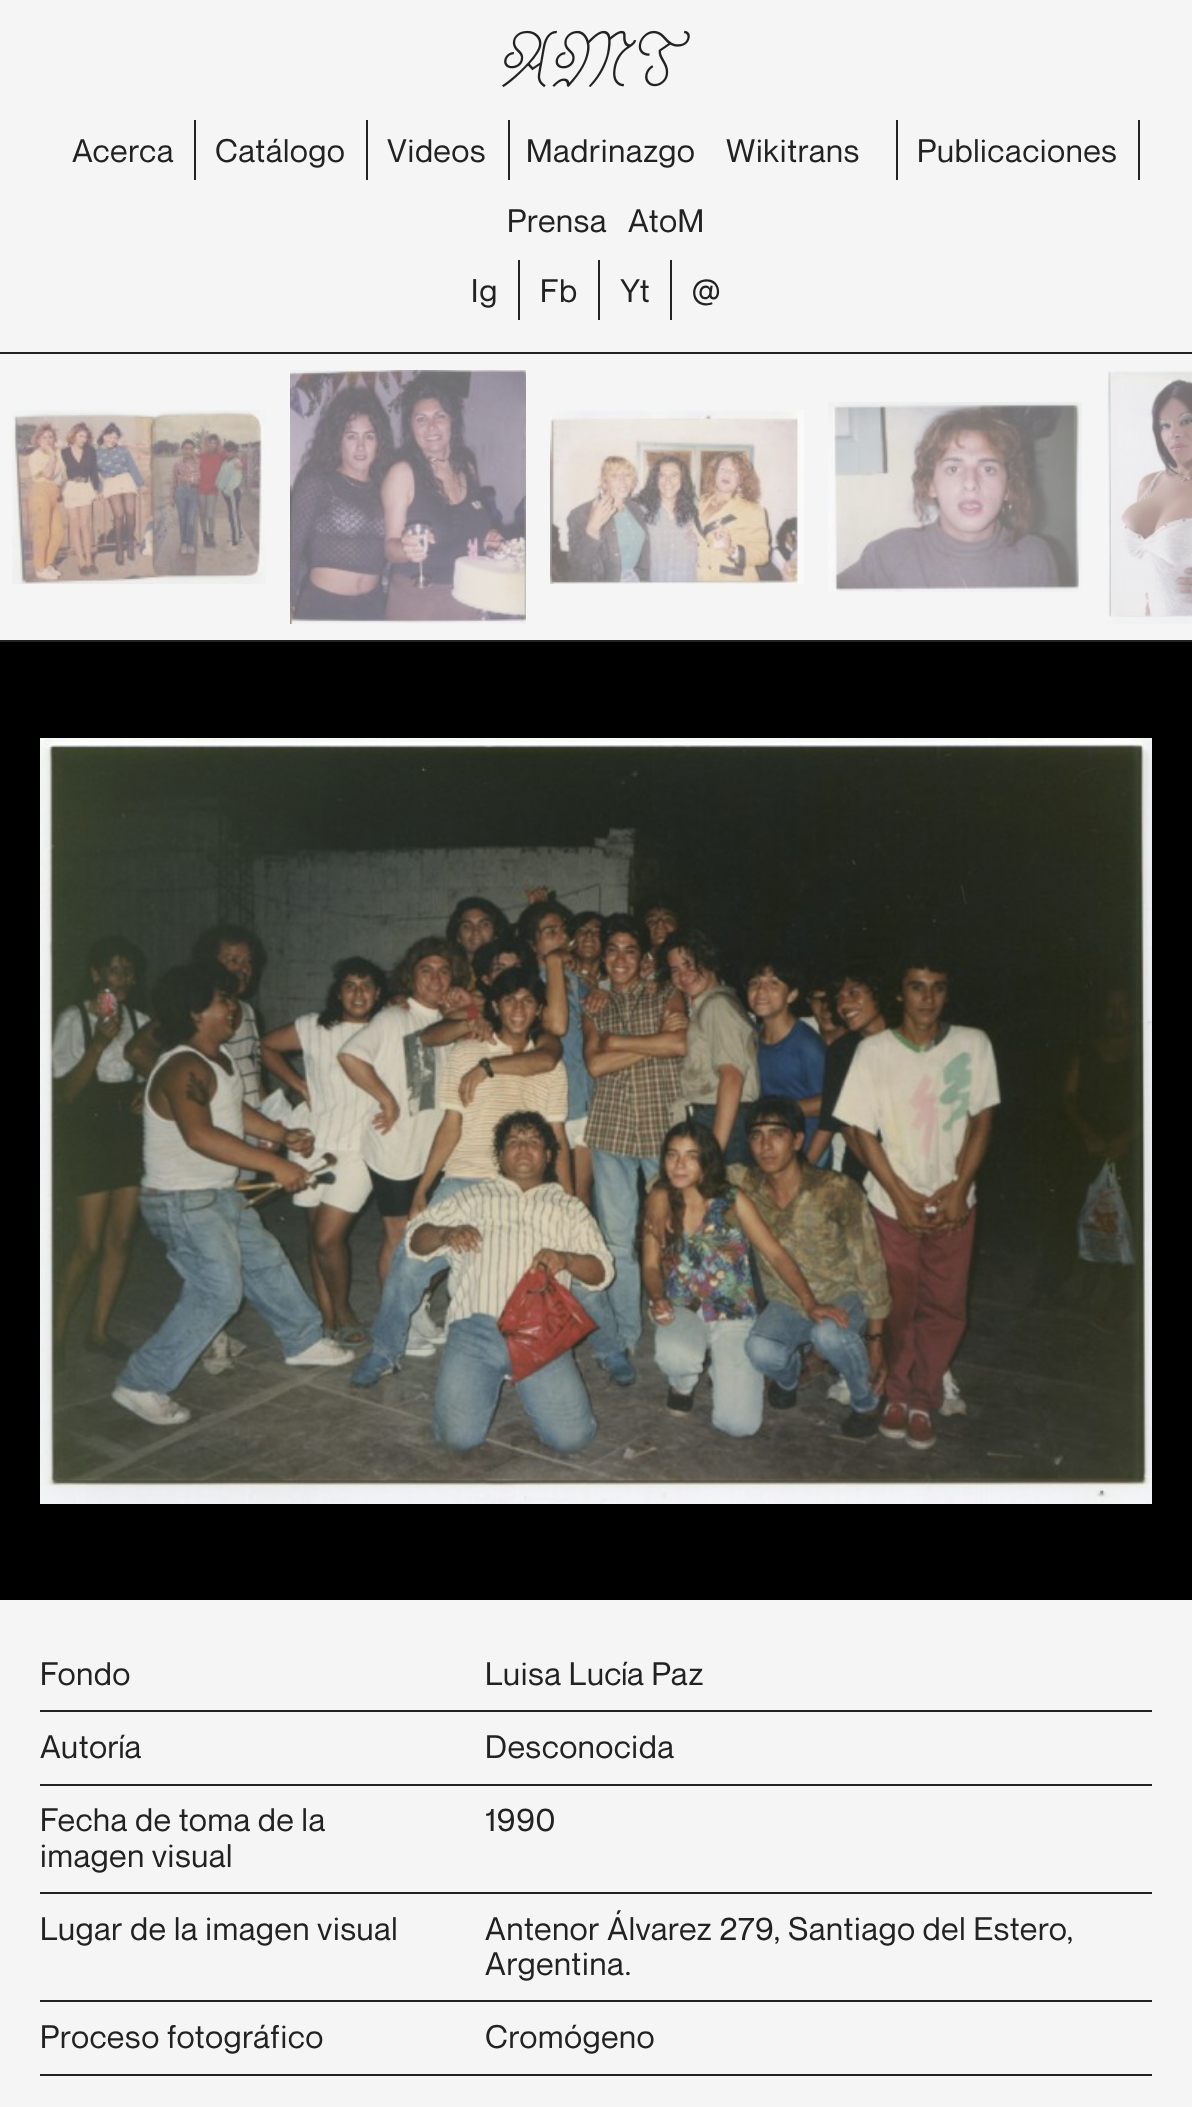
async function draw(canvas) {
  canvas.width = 1192;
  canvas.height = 2107;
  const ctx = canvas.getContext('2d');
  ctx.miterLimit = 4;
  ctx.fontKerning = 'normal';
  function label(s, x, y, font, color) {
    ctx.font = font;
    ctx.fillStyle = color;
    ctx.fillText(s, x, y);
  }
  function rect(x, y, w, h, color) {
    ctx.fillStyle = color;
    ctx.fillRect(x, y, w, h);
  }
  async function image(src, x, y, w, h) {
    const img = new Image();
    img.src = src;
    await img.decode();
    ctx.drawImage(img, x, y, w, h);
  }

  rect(0, 0, 1192, 2107, '#f5f5f5');
  rect(0, 352, 1192, 2, '#222');
  await image('assets/img1.png', 502, 30, 188, 58);
  rect(194, 120, 2, 60, '#222');
  ctx.letterSpacing = '0.8px';
  label('Acerca', 72, 162, '32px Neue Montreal', '#222');
  rect(366, 120, 2, 60, '#222');
  label('Catálogo', 215, 162, '32px Neue Montreal', '#222');
  rect(508, 120, 2, 60, '#222');
  label('Videos', 387, 162, '32px Neue Montreal', '#222');
  label('Madrinazgo', 526, 162, '32px Neue Montreal', '#222');
  rect(896, 120, 2, 60, '#222');
  label('Wikitrans', 726, 162, '32px Neue Montreal', '#222');
  rect(1138, 120, 2, 60, '#222');
  label('Publicaciones', 917, 162, '32px Neue Montreal', '#222');
  label('Prensa', 507, 232, '32px Neue Montreal', '#222');
  label('AtoM', 628, 232, '32px Neue Montreal', '#222');
  rect(518, 260, 2, 60, '#222');
  label('Ig', 471, 302, '32px Neue Montreal', '#222');
  rect(598, 260, 2, 60, '#222');
  label('Fb', 540, 302, '32px Neue Montreal', '#222');
  rect(670, 260, 2, 60, '#222');
  label('Yt', 620, 302, '32px Neue Montreal', '#222');
  label('@', 692, 302, '32px Neue Montreal', '#222');
  rect(0, 640, 1192, 2, '#222');
  await image('assets/img2.png', 12, 410, 254, 174);
  await image('assets/img3.png', 290, 370, 236, 254);
  await image('assets/img4.png', 550, 410, 254, 174);
  await image('assets/img5.png', 828, 402, 254, 190);
  await image('assets/img6.png', 1106, 370, 86, 254);
  rect(0, 642, 1192, 958, '#000');
  await image('assets/img7.png', 40, 738, 1112, 766);
  rect(40, 1710, 1112, 2, '#222');
  label('Fondo', 40, 1685, '32px Neue Montreal', '#222');
  label('Luisa Lucía Paz', 485, 1685, '32px Neue Montreal', '#222');
  rect(40, 1784, 1112, 2, '#222');
  label('Autoría', 40, 1758, '32px Neue Montreal', '#222');
  label('Desconocida', 485, 1758, '32px Neue Montreal', '#222');
  rect(40, 1892, 1112, 2, '#222');
  label('Fecha de toma de la', 40, 1831, '32px Neue Montreal', '#222');
  label('imagen visual', 40, 1867, '32px Neue Montreal', '#222');
  label('1990', 485, 1831, '32px Neue Montreal', '#222');
  rect(40, 2000, 1112, 2, '#222');
  label('Lugar de la imagen visual', 40, 1940, '32px Neue Montreal', '#222');
  label('Antenor Álvarez 279, Santiago del Estero,', 485, 1940, '32px Neue Montreal', '#222');
  label('Argentina.', 485, 1975, '32px Neue Montreal', '#222');
  rect(40, 2074, 1112, 2, '#222');
  label('Proceso fotográfico', 40, 2048, '32px Neue Montreal', '#222');
  label('Cromógeno', 485, 2048, '32px Neue Montreal', '#222');
}

draw(document.querySelector('canvas'));
